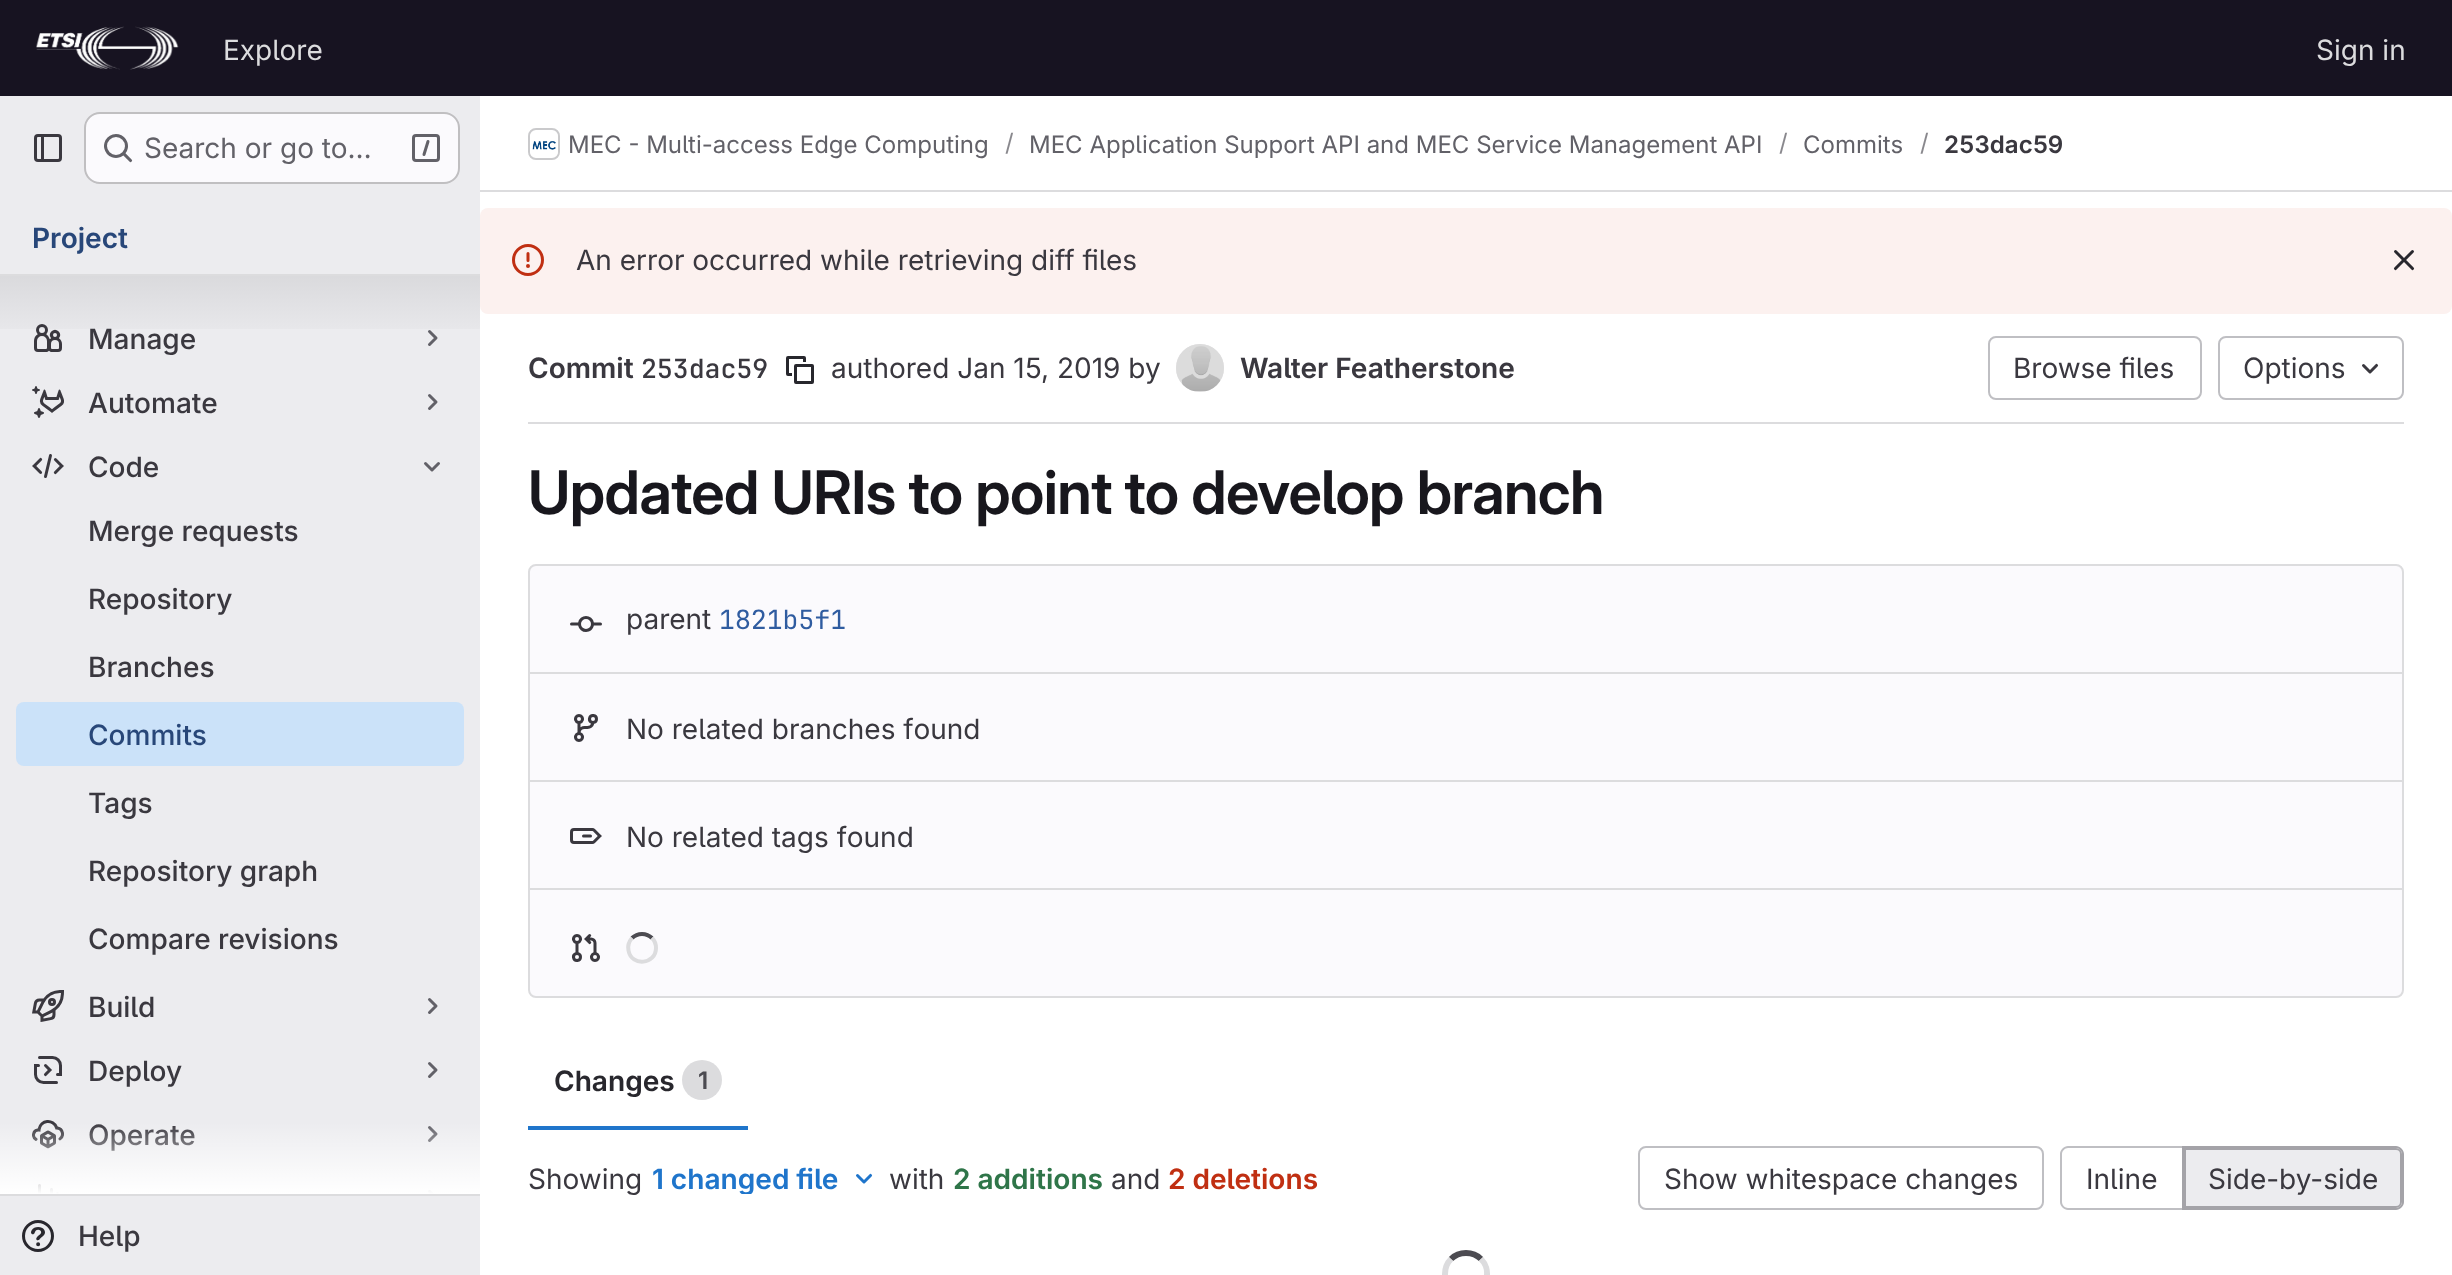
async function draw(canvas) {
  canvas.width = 2452;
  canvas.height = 1275;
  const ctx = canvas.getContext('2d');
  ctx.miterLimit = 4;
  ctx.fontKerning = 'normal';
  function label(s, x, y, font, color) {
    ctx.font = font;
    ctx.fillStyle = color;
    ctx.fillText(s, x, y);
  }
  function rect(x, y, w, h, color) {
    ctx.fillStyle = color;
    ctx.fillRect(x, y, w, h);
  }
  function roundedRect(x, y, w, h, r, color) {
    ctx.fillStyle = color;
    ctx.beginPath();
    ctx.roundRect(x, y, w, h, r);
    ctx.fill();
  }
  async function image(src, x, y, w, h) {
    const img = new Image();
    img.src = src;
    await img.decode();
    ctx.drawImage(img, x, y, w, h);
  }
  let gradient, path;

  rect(0, 0, 2452, 1275, '#fff');
  rect(0, 0, 2452, 96, '#171321');
  await image('assets/img1.png', 36, 26, 143, 44);
  label('Explore', 223, 60, '28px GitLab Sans', '#dcdcde');
  label('Sign in', 2316, 60, '28px GitLab Sans', '#dcdcde');
  rect(0, 96, 480, 1179, '#ececef');
  await image('assets/img2.png', 34, 134, 28, 28);
  roundedRect(84, 112, 376, 72, 16, '#fbfafd');
  ctx.beginPath();
  ctx.roundRect(85, 113, 374, 70, 15);
  ctx.strokeStyle = '#0505063d';
  ctx.lineWidth = 2;
  ctx.stroke();
  await image('assets/img3.png', 104, 134, 29, 29);
  label('Search or go to…', 144, 158, '28px GitLab Sans', '#626168');
  await image('assets/img4.png', 412, 134, 28, 28);
  label('Project', 32, 248, '600 28px GitLab Sans', '#284779');
  rect(0, 274, 480, 2, '#dcdcde');
  rect(0, 1194, 480, 2, '#dcdcde');
  await image('assets/img5.png', 34, 324, 28, 28);
  gradient = ctx.createLinearGradient(240, 276, 240, 348);
  gradient.addColorStop(0, '#05050614');
  gradient.addColorStop(1, '#05050600');
  ctx.fillStyle = gradient;
  ctx.fillRect(0, 276, 480, 53);
  label('Manage', 88, 349, '500 28px GitLab Sans', '#3a383f');
  path = new Path2D('M429.5 331.5L436 338L429.5 344.5');
  ctx.strokeStyle = '#626168';
  ctx.lineWidth = 3;
  ctx.lineCap = 'round';
  ctx.lineJoin = 'round';
  ctx.stroke(path);
  await image('assets/img6.png', 32, 386, 32, 32);
  label('Automate', 88, 413, '500 28px GitLab Sans', '#3a383f');
  path = new Path2D('M429.5 395.5L436 402L429.5 408.5');
  ctx.stroke(path);
  await image('assets/img7.png', 32, 454, 32, 24);
  label('Code', 88, 477, '500 28px GitLab Sans', '#3a383f');
  path = new Path2D('M438.5 463.5L432 470L425.5 463.5');
  ctx.stroke(path);
  label('Merge requests', 88, 541, '500 28px GitLab Sans', '#3a383f');
  label('Repository', 88, 609, '500 28px GitLab Sans', '#3a383f');
  label('Branches', 88, 677, '500 28px GitLab Sans', '#3a383f');
  roundedRect(16, 702, 448, 64, 8, '#cbe2f9');
  label('Commits', 88, 745, '500 28px GitLab Sans', '#284779');
  label('Tags', 88, 813, '500 28px GitLab Sans', '#3a383f');
  label('Repository graph', 88, 881, '500 28px GitLab Sans', '#3a383f');
  label('Compare revisions', 88, 949, '500 28px GitLab Sans', '#3a383f');
  await image('assets/img8.png', 32, 990, 32, 32);
  label('Build', 88, 1017, '500 28px GitLab Sans', '#3a383f');
  path = new Path2D('M429.5 999.5L436 1006L429.5 1012.5');
  ctx.stroke(path);
  await image('assets/img9.png', 34, 1056, 28, 28);
  label('Deploy', 88, 1081, '500 28px GitLab Sans', '#3a383f');
  path = new Path2D('M429.5 1063.5L436 1070L429.5 1076.5');
  ctx.stroke(path);
  await image('assets/img10.png', 32, 1120, 32, 29);
  label('Operate', 88, 1145, '500 28px GitLab Sans', '#3a383f');
  path = new Path2D('M429.5 1127.5L436 1134L429.5 1140.5');
  ctx.stroke(path);
  await image('assets/img11.png', 38, 1184, 21, 10);
  ctx.save();
  ctx.beginPath();
  ctx.rect(416, 1182, 32, 12);
  ctx.clip();
  path = new Path2D('M429.5 1191.5L436 1198L429.5 1204.5');
  ctx.stroke(path);
  ctx.restore();
  gradient = ctx.createLinearGradient(240, 1122, 240, 1194);
  gradient.addColorStop(0, '#ffffff00');
  gradient.addColorStop(1, '#fff');
  ctx.fillStyle = gradient;
  ctx.fillRect(0, 1124, 480, 70);
  await image('assets/img12.png', 22, 1220, 32, 32);
  label('Help', 78, 1246, '500 28px GitLab Sans', '#3a383f');
  rect(480, 190, 1972, 2, '#dcdcde');
  ctx.beginPath();
  ctx.roundRect(529, 129, 30, 30, 7);
  ctx.strokeStyle = '#dcdcde';
  ctx.lineWidth = 2;
  ctx.lineJoin = 'miter';
  ctx.stroke();
  await image('assets/img13.png', 530, 134, 28, 22);
  ctx.beginPath();
  ctx.roundRect(529, 129, 30, 30, 7);
  ctx.strokeStyle = '#05050614';
  ctx.stroke();
  label('MEC - Multi-access Edge Computing', 568, 153, '24px GitLab Sans', '#626168');
  label('/', 1005, 151, '24px GitLab Sans', '#89888d');
  label('MEC Application Support API and MEC Service Management API', 1029, 153, '24px GitLab Sans', '#626168');
  label('/', 1779, 151, '24px GitLab Sans', '#89888d');
  label('Commits', 1803, 153, '24px GitLab Sans', '#626168');
  label('/', 1920, 151, '24px GitLab Sans', '#89888d');
  label('253dac59', 1944, 153, '600 24px GitLab Sans', '#3a383f');
  roundedRect(480, 208, 1972, 106, 8, '#fcf1ef');
  await image('assets/img14.png', 512, 244, 32, 32);
  label('An error occurred while retrieving diff files', 576, 270, '28px GitLab Sans', '#3a383f');
  await image('assets/img15.png', 2393, 250, 22, 21);
  label('Commit', 528, 378, '600 28px GitLab Sans', '#3a383f');
  label('253dac59', 641, 378, '600 26.5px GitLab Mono', '#3a383f');
  await image('assets/img16.png', 786, 356, 28, 28);
  label('authored Jan 15, 2019 by', 831, 378, '28px GitLab Sans', '#3a383f');
  ctx.beginPath();
  ctx.arc(1200, 368, 23, 0, 2 * Math.PI);
  ctx.strokeStyle = '#e8e7e9';
  ctx.stroke();
  await image('assets/img17.png', 1176, 344, 48, 48);
  label('Walter Featherstone', 1240, 378, '600 28px GitLab Sans', '#3a383f');
  ctx.beginPath();
  ctx.roundRect(1989, 337, 212, 62, 7);
  ctx.strokeStyle = '#bfbfc3';
  ctx.stroke();
  label('Browse files', 2013, 378, '28px GitLab Sans', '#3a383f');
  ctx.beginPath();
  ctx.roundRect(2219, 337, 184, 62, 7);
  ctx.stroke();
  label('Options', 2243, 378, '28px GitLab Sans', '#3a383f');
  await image('assets/img18.png', 2362, 363, 17, 11);
  rect(528, 422, 1876, 2, '#dcdcde');
  ctx.letterSpacing = '-0.6px';
  label('Updated URIs to point to develop branch', 528, 514, '600 60px "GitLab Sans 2"', '#18171d');
  ctx.fillStyle = '#fbfafd';
  ctx.beginPath();
  ctx.roundRect(529, 565, 1874, 432, 7);
  ctx.fill();
  ctx.strokeStyle = '#dcdcde';
  ctx.stroke();
  await image('assets/img19.png', 570, 616, 32, 16);
  ctx.letterSpacing = '0px';
  label('parent', 626, 629, '28px GitLab Sans', '#3a383f');
  label('1821b5f1', 719, 629, '26.5px GitLab Mono', '#2f5ca0');
  rect(530, 672, 1872, 2, '#dcdcde');
  await image('assets/img20.png', 574, 714, 24, 28);
  label('No related branches found', 626, 739, '28px GitLab Sans', '#3a383f');
  rect(530, 780, 1872, 2, '#dcdcde');
  await image('assets/img21.png', 570, 828, 32, 16);
  label('No related tags found', 626, 847, '28px GitLab Sans', '#3a383f');
  rect(530, 888, 1872, 2, '#dcdcde');
  await image('assets/img22.png', 571, 934, 29, 28);
  path = new Path2D('M632 938C637.5 932.5 646.5 932.5 652 938');
  ctx.strokeStyle = '#4c4b51';
  ctx.lineWidth = 4;
  ctx.lineCap = 'butt';
  ctx.stroke(path);
  path = new Path2D('M652 938C654.5 940.5 656 944.5 656 948C656 964.5 631.5 967 628.5 950.5C627.5 946 629 941.5 632 938');
  ctx.strokeStyle = '#dcdcde';
  ctx.stroke(path);
  label('Changes', 554, 1091, '600 28px GitLab Sans', '#28272d');
  ctx.fillStyle = '#dcdcde';
  ctx.beginPath();
  ctx.arc(702, 1080, 20, 0, 2 * Math.PI);
  ctx.fill();
  label('1', 698, 1089, '600 24px GitLab Sans', '#4c4b51');
  rect(528, 1126, 220, 4, '#1f75cb');
  label('Showing', 528, 1189, '28px GitLab Sans', '#3a383f');
  ctx.save();
  ctx.beginPath();
  ctx.rect(652, 1162, 188, 32);
  ctx.clip();
  label('1 changed file', 652, 1189, '600 28px GitLab Sans', '#1f75cb');
  ctx.restore();
  await image('assets/img23.png', 856, 1173, 17, 11);
  label('with', 889, 1189, '28px GitLab Sans', '#3a383f');
  label('2 additions', 953, 1189, '600 28px GitLab Sans', '#2f7549');
  label('and', 1111, 1189, '28px GitLab Sans', '#3a383f');
  label('2 deletions', 1168, 1189, '600 28px GitLab Sans', '#c02f12');
  ctx.beginPath();
  ctx.roundRect(1639, 1147, 404, 62, 7);
  ctx.strokeStyle = '#bfbfc3';
  ctx.lineWidth = 2;
  ctx.stroke();
  label('Show whitespace changes', 1664, 1189, '28px GitLab Sans', '#3a383f');
  ctx.fillStyle = '#bfbfc3';
  path = new Path2D('M2068 1146H2182V1210H2068C2064 1210 2060 1206 2060 1202V1154C2060 1150 2064 1146 2068 1146ZM2068 1148H2182V1208H2068C2065 1208 2062 1205 2062 1202V1154C2062 1151 2065 1148 2068 1148Z');
  ctx.fill(path, 'evenodd');
  label('Inline', 2086, 1189, '28px GitLab Sans', '#3a383f');
  ctx.fillStyle = '#ececef';
  ctx.beginPath();
  ctx.roundRect(2185, 1149, 216, 58, [0, 5, 5, 0]);
  ctx.fill();
  ctx.strokeStyle = '#a4a3a8';
  ctx.stroke();
  ctx.fillStyle = '#a4a3a8';
  path = new Path2D('M2184 1146H2396C2400 1146 2404 1150 2404 1154V1202C2404 1206 2400 1210 2396 1210H2184ZM2184 1148H2396C2399 1148 2402 1151 2402 1154V1202C2402 1205 2399 1208 2396 1208H2184Z');
  ctx.fill(path, 'evenodd');
  rect(2182, 1146, 2, 64, '#a4a3a8');
  label('Side-by-side', 2208, 1189, '28px GitLab Sans', '#3a383f');
  path = new Path2D('M1451 1259C1459 1251 1473 1251 1481 1259');
  ctx.strokeStyle = '#4c4b51';
  ctx.lineWidth = 6;
  ctx.stroke(path);
  path = new Path2D('M1481 1259C1486 1264 1488 1271.5 1486.5 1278C1481.5 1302.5 1445 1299 1445 1274C1445 1268.5 1447 1263 1451 1259');
  ctx.strokeStyle = '#dcdcde';
  ctx.stroke(path);
}

draw(document.querySelector('canvas'));
